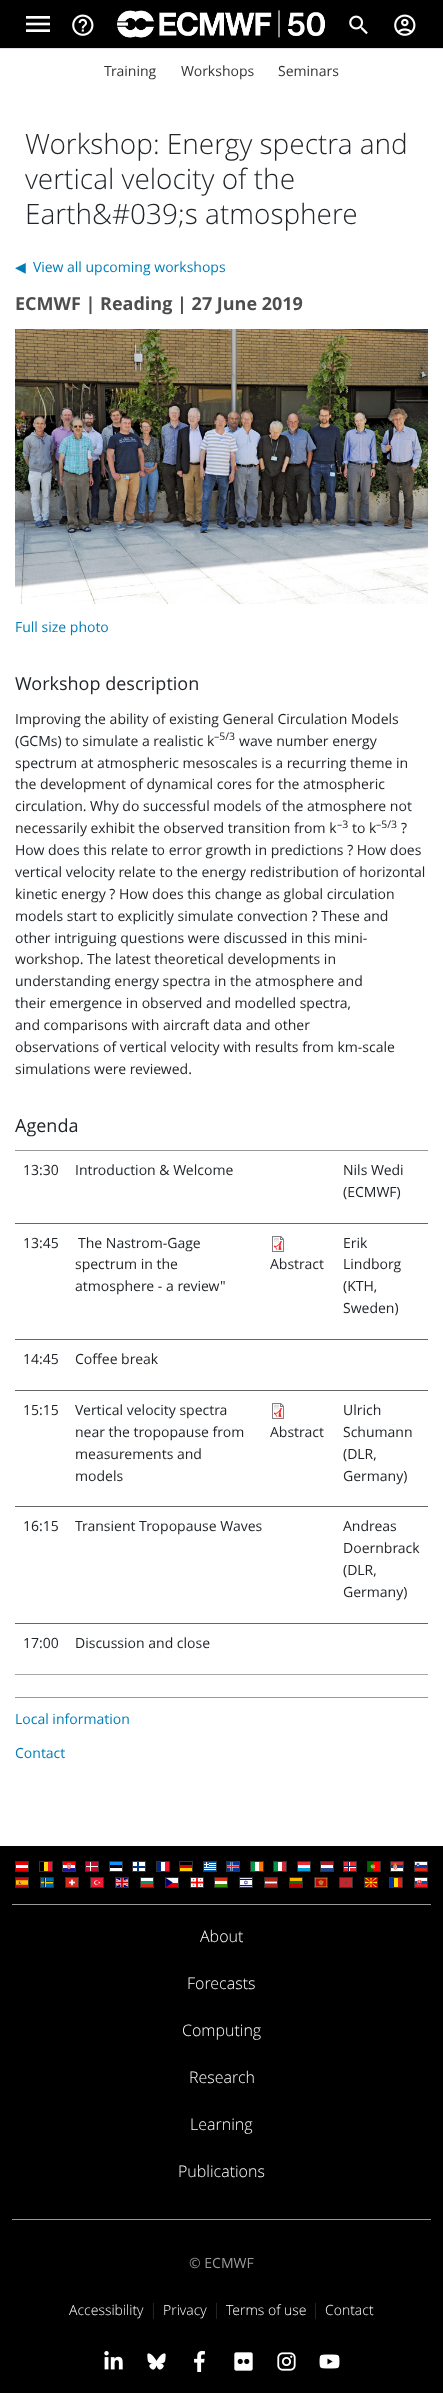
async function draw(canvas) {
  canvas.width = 443;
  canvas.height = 2395;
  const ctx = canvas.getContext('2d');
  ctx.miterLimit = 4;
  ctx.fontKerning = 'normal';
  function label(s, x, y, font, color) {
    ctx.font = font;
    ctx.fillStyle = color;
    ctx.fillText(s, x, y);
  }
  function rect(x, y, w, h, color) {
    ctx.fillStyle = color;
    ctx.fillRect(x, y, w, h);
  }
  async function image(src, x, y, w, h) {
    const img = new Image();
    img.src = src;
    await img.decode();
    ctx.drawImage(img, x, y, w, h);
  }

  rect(0, 0, 443, 2395, '#fff');
  rect(0, 0, 443, 48, '#000');
  rect(0, 48, 443, 1, '#dee2e6');
  await image('assets/img1.png', 26, 16, 24, 16);
  await image('assets/img2.png', 72, 14, 22, 22);
  await image('assets/img3.png', 117, 10, 208, 28);
  await image('assets/img4.png', 349, 15, 19, 20);
  await image('assets/img5.png', 394, 14, 22, 22);
  label('Training', 104, 76, '14px Open Sans', '#333');
  label('Workshops', 181, 76, '14px Open Sans', '#333');
  label('Seminars', 278, 76, '14px Open Sans', '#333');
  label('Workshop: Energy spectra and', 25, 154, '300 28px Open Sans', '#212529');
  label('vertical velocity of the', 25, 189, '300 28px Open Sans', '#212529');
  label('Earth&#039;s atmosphere', 25, 224, '300 28px Open Sans', '#212529');
  label('◀', 15, 272, '14px DejaVu Sans', '#007db8');
  label('View all upcoming workshops', 33, 272, '14px Open Sans', '#007db8');
  label('ECMWF | Reading | 27 June 2019', 15, 310, 'bold 18px Open Sans', '#4d4d4d');
  await image('assets/img6.png', 15, 329, 413, 275);
  label('Full size photo', 15, 632, '14px Open Sans', '#007db8');
  label('Workshop description', 15, 690, '18px Open Sans', '#212529');
  label('Improving the ability of existing General Circulation Models', 15, 724, '14px Open Sans', '#212529');
  label('(GCMs) to simulate a realistic k', 15, 746, '14px Open Sans', '#212529');
  label('–5/3', 214, 740, '10.5px Open Sans', '#212529');
  label('wave number energy', 239, 746, '14px Open Sans', '#212529');
  label('spectrum at atmospheric mesoscales is a recurring theme in', 15, 768, '14px Open Sans', '#212529');
  label('the development of dynamical cores for the atmospheric', 15, 789, '14px Open Sans', '#212529');
  label('circulation. Why do successful models of the atmosphere not', 15, 811, '14px Open Sans', '#212529');
  label('necessarily exhibit the observed transition from k', 15, 833, '14px Open Sans', '#212529');
  label('–3', 337, 828, '10.5px Open Sans', '#212529');
  label('to k', 352, 833, '14px Open Sans', '#212529');
  label('–5/3', 376, 828, '10.5px Open Sans', '#212529');
  label('?', 401, 833, '14px Open Sans', '#212529');
  label('How does this relate to error growth in predictions ? How does', 15, 855, '14px Open Sans', '#212529');
  label('vertical velocity relate to the energy redistribution of horizontal', 15, 877, '14px Open Sans', '#212529');
  label('kinetic energy ? How does this change as global circulation', 15, 899, '14px Open Sans', '#212529');
  label('models start to explicitly simulate convection ? These and', 15, 921, '14px Open Sans', '#212529');
  label('other intriguing questions were discussed in this mini-', 15, 943, '14px Open Sans', '#212529');
  label('workshop. The latest theoretical developments in', 15, 964, '14px Open Sans', '#212529');
  label('understanding energy spectra in the atmosphere and', 15, 986, '14px Open Sans', '#212529');
  label('their emergence in observed and modelled spectra,', 15, 1008, '14px Open Sans', '#212529');
  label('and comparisons with aircraft data and other', 15, 1030, '14px Open Sans', '#212529');
  label('observations of vertical velocity with results from km-scale', 15, 1052, '14px Open Sans', '#212529');
  label('simulations were reviewed.', 15, 1074, '14px Open Sans', '#212529');
  label('Agenda', 15, 1132, '18px Open Sans', '#212529');
  label('13:30', 23, 1175, '14px Open Sans', '#212529');
  label('Introduction & Welcome', 75, 1175, '14px Open Sans', '#212529');
  rect(15, 1150, 413, 1, '#999');
  rect(15, 1223, 413, 1, '#666');
  label('Nils Wedi', 343, 1175, '14px Open Sans', '#212529');
  label('(ECMWF)', 343, 1197, '14px Open Sans', '#212529');
  label('13:45', 23, 1248, '14px Open Sans', '#212529');
  label('The Nastrom-Gage', 78, 1248, '14px Open Sans', '#212529');
  label('spectrum in the', 75, 1269, '14px Open Sans', '#212529');
  label('atmosphere - a review"', 75, 1291, '14px Open Sans', '#212529');
  await image('assets/img7.png', 272, 1236, 12, 16);
  label('Abstract', 270, 1269, '14px Open Sans', '#212529');
  rect(15, 1339, 413, 1, '#666');
  label('Erik', 343, 1248, '14px Open Sans', '#212529');
  label('Lindborg', 343, 1269, '14px Open Sans', '#212529');
  label('(KTH,', 343, 1291, '14px Open Sans', '#212529');
  label('Sweden)', 343, 1313, '14px Open Sans', '#212529');
  label('14:45', 23, 1364, '14px Open Sans', '#212529');
  label('Coffee break', 75, 1364, '14px Open Sans', '#212529');
  rect(15, 1390, 413, 1, '#666');
  label('15:15', 23, 1415, '14px Open Sans', '#212529');
  label('Vertical velocity spectra', 75, 1415, '14px Open Sans', '#212529');
  label('near the tropopause from', 75, 1437, '14px Open Sans', '#212529');
  label('measurements and', 75, 1459, '14px Open Sans', '#212529');
  label('models', 75, 1481, '14px Open Sans', '#212529');
  rect(15, 1506, 413, 1, '#666');
  label('Ulrich', 343, 1415, '14px Open Sans', '#212529');
  label('Schumann', 343, 1437, '14px Open Sans', '#212529');
  label('(DLR,', 343, 1459, '14px Open Sans', '#212529');
  label('Germany)', 343, 1481, '14px Open Sans', '#212529');
  await image('assets/img7.png', 272, 1403, 12, 16);
  label('Abstract', 270, 1437, '14px Open Sans', '#212529');
  label('16:15', 23, 1531, '14px Open Sans', '#212529');
  label('Transient Tropopause Waves', 75, 1531, '14px Open Sans', '#212529');
  rect(15, 1623, 413, 1, '#666');
  label('Andreas', 343, 1531, '14px Open Sans', '#212529');
  label('Doernbrack', 343, 1553, '14px Open Sans', '#212529');
  label('(DLR,', 343, 1575, '14px Open Sans', '#212529');
  label('Germany)', 343, 1597, '14px Open Sans', '#212529');
  label('17:00', 23, 1648, '14px Open Sans', '#212529');
  label('Discussion and close', 75, 1648, '14px Open Sans', '#212529');
  rect(15, 1674, 413, 1, '#a7a7a7');
  rect(15, 1697, 413, 1, '#999');
  label('Local information', 15, 1724, '14px Open Sans', '#007db8');
  label('Contact', 15, 1758, '14px Open Sans', '#007db8');
  rect(0, 1846, 443, 547, '#000');
  await image('assets/img8.png', 16, 1862, 12, 9);
  ctx.strokeStyle = '#333';
  ctx.strokeRect(15.5, 1861.5, 13, 10);
  rect(44, 1862, 4, 9, '#ffd90c');
  rect(48, 1862, 4, 9, '#f31830');
  ctx.strokeRect(39.5, 1861.5, 13, 10);
  await image('assets/img9.png', 63, 1862, 12, 9);
  ctx.strokeRect(62.5, 1861.5, 13, 10);
  rect(86, 1862, 12, 9, '#c60c30');
  rect(90, 1862, 1, 9, '#fff');
  rect(86, 1866, 12, 1, '#fff');
  ctx.strokeRect(85.5, 1861.5, 13, 10);
  rect(110, 1868, 12, 3, '#fff');
  rect(110, 1862, 12, 3, '#1291ff');
  ctx.strokeRect(109.5, 1861.5, 13, 10);
  rect(133, 1862, 12, 9, '#fff');
  rect(133, 1866, 12, 2, '#003580');
  rect(137, 1862, 2, 9, '#003580');
  ctx.strokeRect(132.5, 1861.5, 13, 10);
  rect(161, 1862, 4, 9, '#fff');
  rect(157, 1862, 4, 9, '#00267f');
  rect(165, 1862, 4, 9, '#f31830');
  ctx.strokeRect(156.5, 1861.5, 13, 10);
  rect(180, 1868, 12, 3, '#ffce00');
  rect(180, 1865, 12, 3, '#d00');
  ctx.strokeRect(179.5, 1861.5, 13, 10);
  await image('assets/img10.png', 204, 1862, 12, 9);
  ctx.strokeRect(203.5, 1861.5, 13, 10);
  await image('assets/img11.png', 227, 1862, 12, 9);
  ctx.strokeRect(226.5, 1861.5, 13, 10);
  rect(255, 1862, 4, 9, '#fff');
  rect(251, 1862, 4, 9, '#009a49');
  rect(259, 1862, 4, 9, '#ff7900');
  ctx.strokeRect(250.5, 1861.5, 13, 10);
  rect(278, 1862, 4, 9, '#fff');
  rect(274, 1862, 4, 9, '#009246');
  rect(282, 1862, 4, 9, '#ce2b37');
  ctx.strokeRect(273.5, 1861.5, 13, 10);
  rect(298, 1868, 12, 3, '#00a1de');
  rect(298, 1862, 12, 3, '#ed2939');
  rect(298, 1865, 12, 3, '#fff');
  ctx.strokeRect(297.5, 1861.5, 13, 10);
  rect(321, 1865, 12, 3, '#fff');
  rect(321, 1868, 12, 3, '#21468b');
  rect(321, 1862, 12, 3, '#ae1c28');
  ctx.strokeRect(320.5, 1861.5, 13, 10);
  await image('assets/img12.png', 344, 1862, 12, 9);
  ctx.strokeRect(343.5, 1861.5, 13, 10);
  await image('assets/img13.png', 368, 1862, 12, 9);
  ctx.strokeRect(367.5, 1861.5, 13, 10);
  await image('assets/img14.png', 391, 1862, 12, 9);
  ctx.strokeRect(390.5, 1861.5, 13, 10);
  await image('assets/img15.png', 415, 1862, 12, 9);
  ctx.strokeRect(414.5, 1861.5, 13, 10);
  await image('assets/img16.png', 16, 1878, 12, 9);
  ctx.strokeRect(15.5, 1877.5, 13, 10);
  await image('assets/img17.png', 41, 1878, 12, 9);
  ctx.strokeRect(40.5, 1877.5, 13, 10);
  await image('assets/img18.png', 66, 1878, 12, 9);
  ctx.strokeRect(65.5, 1877.5, 13, 10);
  await image('assets/img19.png', 91, 1878, 12, 9);
  ctx.strokeRect(90.5, 1877.5, 13, 10);
  await image('assets/img20.png', 116, 1878, 12, 9);
  ctx.strokeRect(115.5, 1877.5, 13, 10);
  rect(141, 1884, 12, 3, '#d62612');
  rect(141, 1878, 12, 3, '#fff');
  rect(141, 1881, 12, 3, '#00966e');
  ctx.strokeRect(140.5, 1877.5, 13, 10);
  await image('assets/img21.png', 166, 1878, 12, 9);
  ctx.strokeRect(165.5, 1877.5, 13, 10);
  await image('assets/img22.png', 191, 1878, 12, 9);
  ctx.strokeRect(190.5, 1877.5, 13, 10);
  rect(215, 1881, 12, 3, '#fff');
  rect(215, 1884, 12, 3, '#388d00');
  rect(215, 1878, 12, 3, '#d43516');
  ctx.strokeRect(214.5, 1877.5, 13, 10);
  await image('assets/img23.png', 240, 1878, 12, 9);
  ctx.strokeRect(239.5, 1877.5, 13, 10);
  await image('assets/img24.png', 265, 1878, 12, 9);
  ctx.strokeRect(264.5, 1877.5, 13, 10);
  rect(290, 1881, 12, 3, '#007308');
  rect(290, 1884, 12, 3, '#bf0000');
  rect(290, 1878, 12, 3, '#ffb300');
  ctx.strokeRect(289.5, 1877.5, 13, 10);
  await image('assets/img25.png', 315, 1878, 12, 9);
  ctx.strokeRect(314.5, 1877.5, 13, 10);
  await image('assets/img26.png', 340, 1878, 12, 9);
  ctx.strokeRect(339.5, 1877.5, 13, 10);
  await image('assets/img27.png', 365, 1878, 12, 9);
  ctx.strokeRect(364.5, 1877.5, 13, 10);
  rect(390, 1878, 4, 9, '#00319c');
  rect(394, 1878, 4, 9, '#ffde00');
  rect(398, 1878, 4, 9, '#de2110');
  ctx.strokeRect(389.5, 1877.5, 13, 10);
  await image('assets/img28.png', 415, 1878, 12, 9);
  ctx.strokeRect(414.5, 1877.5, 13, 10);
  rect(12, 1904, 419, 1, '#999');
  label('About', 200, 1942, '300 16px Open Sans', '#fff');
  label('Forecasts', 187, 1989, '300 16px Open Sans', '#fff');
  label('Computing', 182, 2036, '300 16px Open Sans', '#fff');
  label('Research', 189, 2083, '300 16px Open Sans', '#fff');
  label('Learning', 190, 2130, '300 16px Open Sans', '#fff');
  label('Publications', 178, 2177, '300 16px Open Sans', '#fff');
  rect(12, 2219, 419, 1, '#999');
  label('© ECMWF', 189, 2268, '14px Open Sans', '#999');
  label('Accessibility', 69, 2315, '300 14px Open Sans', '#fff');
  label('|', 149, 2315, '300 16px Open Sans', '#333');
  label('Privacy', 163, 2315, '300 14px Open Sans', '#fff');
  label('|', 212, 2315, '300 16px Open Sans', '#333');
  label('Terms of use', 226, 2315, '300 14px Open Sans', '#fff');
  label('|', 311, 2315, '300 16px Open Sans', '#333');
  label('Contact', 325, 2315, '300 14px Open Sans', '#fff');
  await image('assets/img29.png', 104, 2351, 19, 19);
  await image('assets/img30.png', 147, 2353, 19, 17);
  await image('assets/img31.png', 194, 2351, 11, 21);
  await image('assets/img32.png', 234, 2352, 19, 19);
  await image('assets/img33.png', 277, 2352, 19, 19);
  await image('assets/img34.png', 319, 2354, 21, 15);
}

draw(document.querySelector('canvas'));
